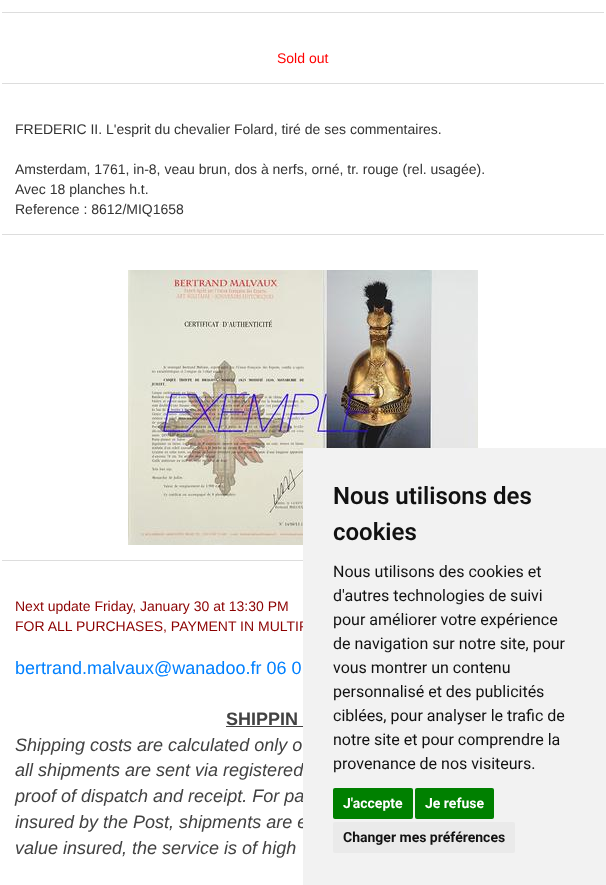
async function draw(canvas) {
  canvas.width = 606;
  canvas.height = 885;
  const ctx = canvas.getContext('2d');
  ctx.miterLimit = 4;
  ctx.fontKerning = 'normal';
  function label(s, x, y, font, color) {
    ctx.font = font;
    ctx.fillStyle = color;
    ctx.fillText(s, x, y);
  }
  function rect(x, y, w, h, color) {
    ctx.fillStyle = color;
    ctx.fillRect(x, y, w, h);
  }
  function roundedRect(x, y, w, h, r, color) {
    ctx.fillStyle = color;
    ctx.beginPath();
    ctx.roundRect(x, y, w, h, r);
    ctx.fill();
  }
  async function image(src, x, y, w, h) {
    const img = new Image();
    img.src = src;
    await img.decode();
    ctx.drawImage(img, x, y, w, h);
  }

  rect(0, 0, 606, 885, '#fff');
  rect(2, 12, 602, 1, '#ddd');
  rect(2, 83, 602, 1, '#ddd');
  label('Sold out', 277, 63, '14px Liberation Sans', '#f00');
  rect(2, 234, 602, 1, '#ddd');
  label('FREDERIC II. L\'esprit du chevalier Folard, tiré de ses commentaires.', 15, 134, '14px Liberation Sans', '#333');
  label('Amsterdam, 1761, in-8, veau brun, dos à nerfs, orné, tr. rouge (rel. usagée).', 15, 174, '14px Liberation Sans', '#333');
  label('Avec 18 planches h.t.', 15, 194, '14px Liberation Sans', '#333');
  label('Reference : 8612/MIQ1658', 15, 214, '14px Liberation Sans', '#333');
  rect(2, 560, 301, 1, '#ddd');
  await image('assets/img1.png', 128, 270, 350, 275);
  label('Next update Friday, January 30 at 13:30 PM', 15, 611, '14px Liberation Sans', '#8b0000');
  label('FOR ALL PURCHASES, PAYMENT IN MULTIP', 15, 631, '14px Liberation Sans', '#8b0000');
  label('bertrand.malvaux@wanadoo.fr 06 0', 15, 674, '18px Liberation Sans', '#0080ff');
  label('SHIPPIN', 226, 725, 'bold 18px Liberation Sans', '#424242');
  rect(226, 726, 77, 1, '#424242');
  label('Shipping costs are calculated only o', 15, 751, 'italic 18px Liberation Sans', '#424242');
  label('all shipments are sent via registered', 15, 776, 'italic 18px Liberation Sans', '#424242');
  label('proof of dispatch and receipt. For pa', 15, 802, 'italic 18px Liberation Sans', '#424242');
  label('insured by the Post, shipments are e', 15, 828, 'italic 18px Liberation Sans', '#424242');
  label('value insured, the service is of high', 15, 854, 'italic 18px Liberation Sans', '#424242');
  rect(303, 448, 303, 437, '#f2f2f2');
  label('Nous utilisons des', 333, 504, '600 24px Roboto', '#111');
  label('cookies', 333, 540, '600 24px Roboto', '#111');
  label('Nous utilisons des cookies et', 333, 577, '16px Roboto', '#111');
  label('d\'autres technologies de suivi', 333, 601, '16px Roboto', '#111');
  label('pour améliorer votre expérience', 333, 625, '16px Roboto', '#111');
  label('de navigation sur notre site, pour', 333, 649, '16px Roboto', '#111');
  label('vous montrer un contenu', 333, 673, '16px Roboto', '#111');
  label('personnalisé et des publicités', 333, 697, '16px Roboto', '#111');
  label('ciblées, pour analyser le trafic de', 333, 721, '16px Roboto', '#111');
  label('notre site et pour comprendre la', 333, 745, '16px Roboto', '#111');
  label('provenance de nos visiteurs.', 333, 769, '16px Roboto', '#111');
  roundedRect(333, 788, 80, 31, 2, '#008000');
  label('J\'accepte', 343, 808, 'bold 14px Roboto', '#fff');
  roundedRect(415, 788, 79, 31, 2, '#008000');
  label('Je refuse', 425, 808, 'bold 14px Roboto', '#fff');
  roundedRect(333, 822, 182, 31, 2, '#eaeaea');
  label('Changer mes préférences', 343, 842, 'bold 14px Roboto', '#111');
}

draw(document.querySelector('canvas'));
